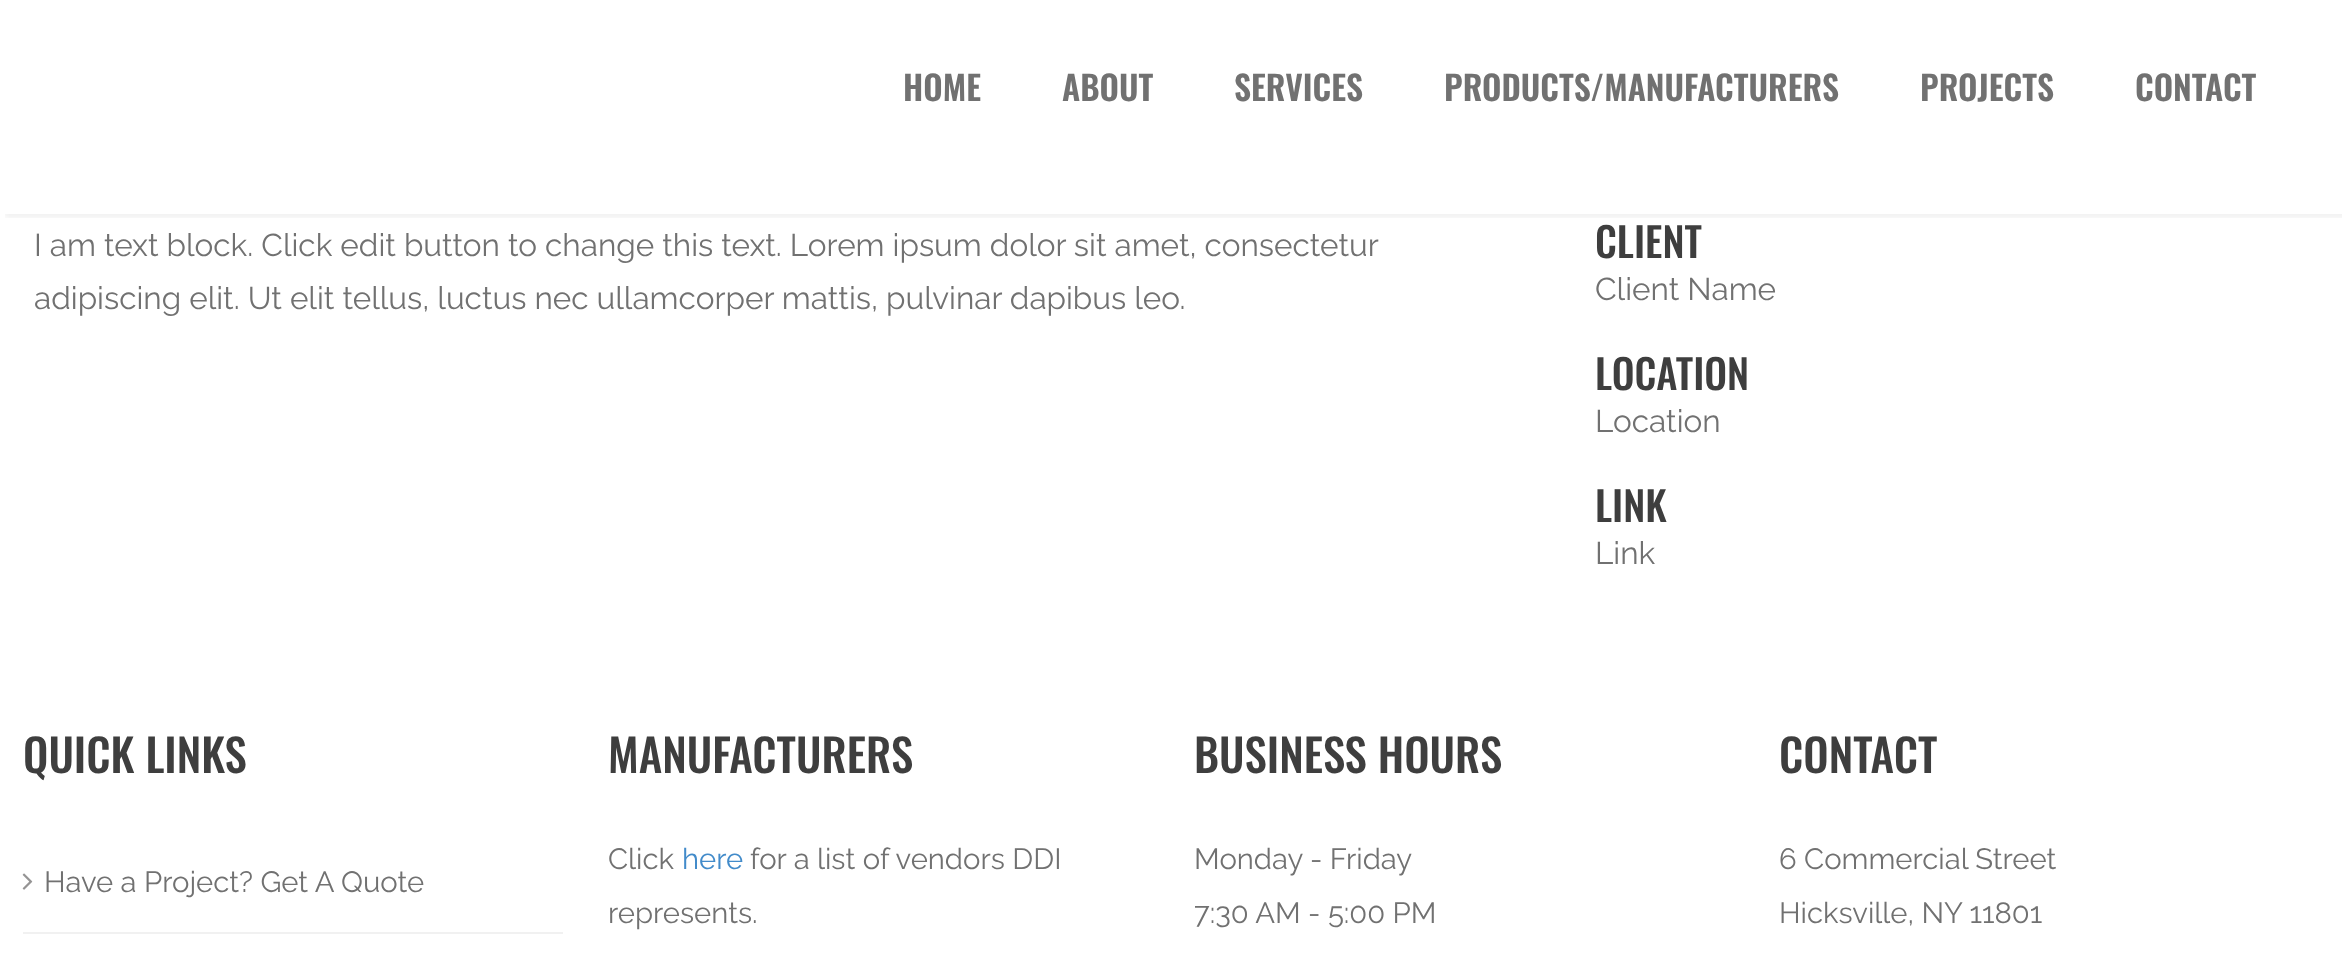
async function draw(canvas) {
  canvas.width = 2342;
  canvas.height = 962;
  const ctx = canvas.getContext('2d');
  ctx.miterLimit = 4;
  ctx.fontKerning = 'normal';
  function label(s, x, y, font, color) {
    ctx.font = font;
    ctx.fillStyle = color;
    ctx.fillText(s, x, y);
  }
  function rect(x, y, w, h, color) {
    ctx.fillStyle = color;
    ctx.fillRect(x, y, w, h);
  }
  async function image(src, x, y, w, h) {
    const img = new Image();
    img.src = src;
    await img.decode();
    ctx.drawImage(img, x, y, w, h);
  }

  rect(0, 0, 2342, 962, '#fff');
  ctx.save();
  ctx.beginPath();
  ctx.rect(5, 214, 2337, 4);
  ctx.clip();
  ctx.fillStyle = '#0000000d';
  ctx.filter = 'blur(2px)';
  ctx.beginPath();
  ctx.rect(5, 5, 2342, 213);
  ctx.fill();
  ctx.filter = 'none';
  ctx.restore();
  rect(7, 213, 2335, 1, '#fffffff2');
  label('HOME', 903, 101, '600 33.75px Oswald', '#717171');
  label('ABOUT', 1062, 101, '600 33.75px Oswald', '#717171');
  label('SERVICES', 1234, 101, '600 33.75px Oswald', '#717171');
  label('PRODUCTS/MANUFACTURERS', 1444, 101, '600 33.75px Oswald', '#717171');
  label('PROJECTS', 1920, 101, '600 33.75px Oswald', '#717171');
  label('CONTACT', 2135, 101, '600 33.75px Oswald', '#717171');
  label('I am text block. Click edit button to change this text. Lorem ipsum dolor sit amet, consectetur', 34, 256, '31.5px Raleway', '#717171');
  label('adipiscing elit. Ut elit tellus, luctus nec ullamcorper mattis, pulvinar dapibus leo.', 34, 309, '31.5px Raleway', '#717171');
  label('CLIENT', 1595, 258, '500 40.5px Oswald', '#3e3e3e');
  label('Client Name', 1595, 300, '31.5px Raleway', '#717171');
  label('LOCATION', 1595, 390, '500 40.5px Oswald', '#3e3e3e');
  label('Location', 1595, 432, '31.5px Raleway', '#717171');
  label('LINK', 1595, 522, '500 40.5px Oswald', '#3e3e3e');
  label('Link', 1595, 564, '31.5px Raleway', '#717171');
  label('QUICK LINKS', 23, 773, '500 45px Oswald', '#3e3e3e');
  rect(23, 932, 540, 2, '#f1f1f1');
  await image('assets/img1.png', 22, 873, 11, 17);
  label('Have a Project? Get A Quote', 44, 892, '29.25px Raleway', '#717171');
  label('MANUFACTURERS', 608, 773, '500 45px Oswald', '#3e3e3e');
  label('Click', 608, 869, '29.25px Raleway', '#717171');
  label('here', 682, 869, '29.25px Raleway', '#428bca');
  label('for a list of vendors DDI', 750, 869, '29.25px Raleway', '#717171');
  label('represents.', 608, 923, '29.25px Raleway', '#717171');
  label('BUSINESS HOURS', 1194, 773, '500 45px Oswald', '#3e3e3e');
  label('Monday - Friday', 1194, 869, '29.25px Raleway', '#717171');
  label('7:30 AM - 5:00 PM', 1194, 923, '29.25px Raleway', '#717171');
  label('CONTACT', 1779, 773, '500 45px Oswald', '#3e3e3e');
  label('6 Commercial Street', 1779, 869, '29.25px Raleway', '#717171');
  label('Hicksville, NY 11801', 1779, 923, '29.25px Raleway', '#717171');
}

draw(document.querySelector('canvas'));
